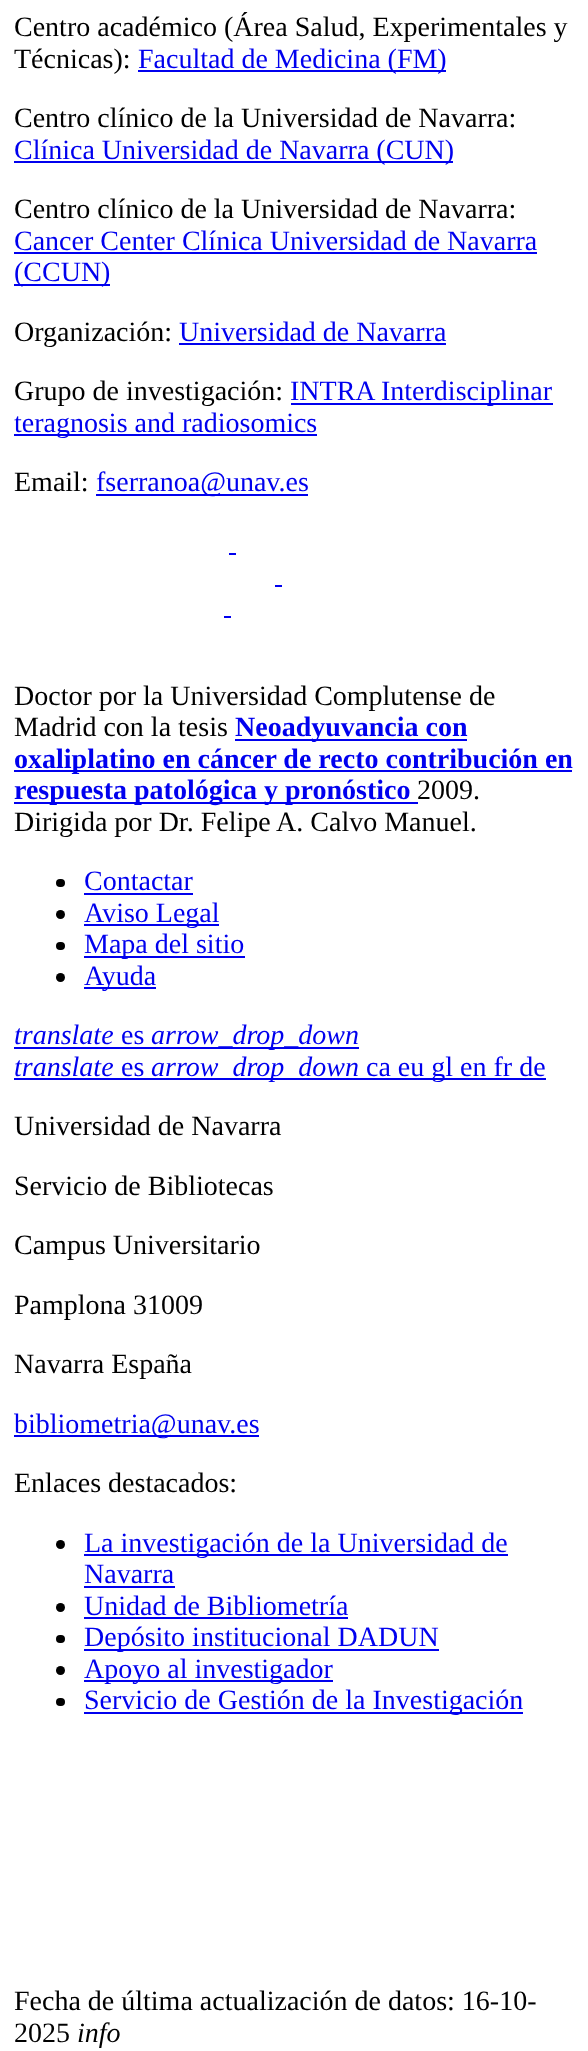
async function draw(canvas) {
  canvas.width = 588;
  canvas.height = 2051;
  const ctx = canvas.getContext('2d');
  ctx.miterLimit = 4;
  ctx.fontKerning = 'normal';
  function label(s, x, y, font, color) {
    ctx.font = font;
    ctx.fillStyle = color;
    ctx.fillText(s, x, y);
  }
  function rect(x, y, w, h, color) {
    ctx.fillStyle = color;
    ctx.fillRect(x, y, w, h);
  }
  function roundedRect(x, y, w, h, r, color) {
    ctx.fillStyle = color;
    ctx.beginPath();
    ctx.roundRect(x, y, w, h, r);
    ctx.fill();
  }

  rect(0, 0, 588, 2051, '#fff');
  label('Centro académico (Área Salud, Experimentales y', 14, 36, '28px Liberation Serif', '#000');
  label('Técnicas):', 14, 68, '28px Liberation Serif', '#000');
  rect(138, 70, 308, 2, '#00e');
  label('Facultad de Medicina (FM)', 138, 68, '28px Liberation Serif', '#00e');
  label('Centro clínico de la Universidad de Navarra:', 14, 127, '28px Liberation Serif', '#000');
  rect(14, 161, 439, 2, '#00e');
  label('Clínica Universidad de Navarra (CUN)', 14, 159, '28px Liberation Serif', '#00e');
  label('Centro clínico de la Universidad de Navarra:', 14, 218, '28px Liberation Serif', '#000');
  label('Cancer Center Clínica Universidad de Navarra', 14, 250, '28px Liberation Serif', '#00e');
  rect(14, 252, 523, 2, '#00e');
  rect(14, 284, 96, 2, '#00e');
  label('(CCUN)', 14, 281, '28px Liberation Serif', '#00e');
  label('Organización:', 14, 341, '28px Liberation Serif', '#000');
  label('Universidad de Navarra', 179, 341, '28px Liberation Serif', '#00e');
  rect(179, 343, 267, 2, '#00e');
  label('Grupo de investigación:', 14, 400, '28px Liberation Serif', '#000');
  label('INTRA', 290, 400, '28px Liberation Serif', '#00e');
  rect(291, 403, 262, 2, '#00e');
  label('Interdisciplinar', 381, 400, '28px Liberation Serif', '#00e');
  rect(14, 434, 303, 2, '#00e');
  label('teragnosis and radiosomics', 14, 432, '28px Liberation Serif', '#00e');
  label('Email:', 14, 491, '28px Liberation Serif', '#000');
  rect(96, 494, 212, 2, '#00e');
  label('fserranoa@unav.es', 96, 491, '28px Liberation Serif', '#00e');
  rect(229, 553, 7, 2, '#00e');
  rect(275, 585, 7, 2, '#00e');
  rect(224, 616, 7, 2, '#00e');
  label('Doctor por la Universidad Complutense de', 14, 705, '28px Liberation Serif', '#000');
  label('Madrid con la tesis', 14, 736, '28px Liberation Serif', '#000');
  rect(235, 739, 232, 2, '#00e');
  label('Neoadyuvancia con', 235, 736, 'bold 28px Liberation Serif', '#00e');
  rect(14, 770, 558, 2, '#00e');
  label('oxaliplatino en cáncer de recto contribución en', 14, 768, 'bold 28px Liberation Serif', '#00e');
  rect(14, 802, 404, 2, '#00e');
  label('respuesta patológica y pronóstico', 14, 799, 'bold 28px Liberation Serif', '#00e');
  label('2009.', 417, 799, '28px Liberation Serif', '#000');
  label('Dirigida por Dr. Felipe A. Calvo Manuel.', 14, 831, '28px Liberation Serif', '#000');
  roundedRect(56, 879, 9, 8, 4, '#000');
  label('Contactar', 84, 890, '28px Liberation Serif', '#00e');
  rect(84, 893, 109, 2, '#00e');
  ctx.fillStyle = '#000';
  ctx.beginPath();
  ctx.arc(60.5, 914.5, 4.5, 0, 2 * Math.PI);
  ctx.fill();
  rect(84, 924, 135, 2, '#00e');
  label('Aviso Legal', 84, 922, '28px Liberation Serif', '#00e');
  roundedRect(56, 942, 9, 8, 4, '#000');
  rect(84, 956, 161, 2, '#00e');
  label('Mapa del sitio', 84, 953, '28px Liberation Serif', '#00e');
  ctx.fillStyle = '#000';
  ctx.beginPath();
  ctx.arc(60.5, 977.5, 4.5, 0, 2 * Math.PI);
  ctx.fill();
  rect(84, 987, 72, 2, '#00e');
  label('Ayuda', 84, 985, '28px Liberation Serif', '#00e');
  label('translate', 14, 1044, 'italic 28px Liberation Serif', '#00e');
  label('es', 121, 1044, '28px Liberation Serif', '#00e');
  rect(14, 1047, 345, 2, '#00e');
  label('arrow_drop_down', 151, 1044, 'italic 28px Liberation Serif', '#00e');
  label('translate', 14, 1076, 'italic 28px Liberation Serif', '#00e');
  label('es', 121, 1076, '28px Liberation Serif', '#00e');
  rect(14, 1078, 532, 2, '#00e');
  label('arrow_drop_down', 151, 1076, 'italic 28px Liberation Serif', '#00e');
  label('ca eu gl en fr de', 366, 1076, '28px Liberation Serif', '#00e');
  label('Universidad de Navarra', 14, 1135, '28px Liberation Serif', '#000');
  label('Servicio de Bibliotecas', 14, 1195, '28px Liberation Serif', '#000');
  label('Campus Universitario', 14, 1254, '28px Liberation Serif', '#000');
  label('Pamplona 31009', 14, 1314, '28px Liberation Serif', '#000');
  label('Navarra España', 14, 1373, '28px Liberation Serif', '#000');
  rect(14, 1435, 245, 2, '#00e');
  label('bibliometria@unav.es', 14, 1433, '28px Liberation Serif', '#00e');
  label('Enlaces destacados:', 14, 1492, '28px Liberation Serif', '#000');
  ctx.beginPath();
  ctx.arc(60.5, 1544.5, 4.5, 0, 2 * Math.PI);
  ctx.fill();
  rect(84, 1554, 424, 2, '#00e');
  label('La investigación de la Universidad de', 84, 1552, '28px Liberation Serif', '#00e');
  label('Navarra', 84, 1583, '28px Liberation Serif', '#00e');
  rect(84, 1586, 91, 2, '#00e');
  ctx.fillStyle = '#000';
  ctx.beginPath();
  ctx.arc(60.5, 1607.5, 4.5, 0, 2 * Math.PI);
  ctx.fill();
  label('Unidad de Bibliometría', 84, 1615, '28px Liberation Serif', '#00e');
  rect(84, 1617, 264, 2, '#00e');
  roundedRect(56, 1635, 9, 8, 4, '#000');
  rect(84, 1649, 355, 2, '#00e');
  label('Depósito institucional DADUN', 84, 1646, '28px Liberation Serif', '#00e');
  ctx.fillStyle = '#000';
  ctx.beginPath();
  ctx.arc(60.5, 1670.5, 4.5, 0, 2 * Math.PI);
  ctx.fill();
  rect(84, 1680, 249, 2, '#00e');
  label('Apoyo al investigador', 84, 1678, '28px Liberation Serif', '#00e');
  roundedRect(56, 1698, 9, 8, 4, '#000');
  rect(84, 1712, 439, 2, '#00e');
  label('Servicio de Gestión de la Investigación', 84, 1709, '28px Liberation Serif', '#00e');
  label('Fecha de última actualización de datos: 16-10-', 14, 2010, '28px Liberation Serif', '#000');
  label('2025', 14, 2042, '28px Liberation Serif', '#000');
  label('info', 77, 2042, 'italic 28px Liberation Serif', '#000');
}

draw(document.querySelector('canvas'));
